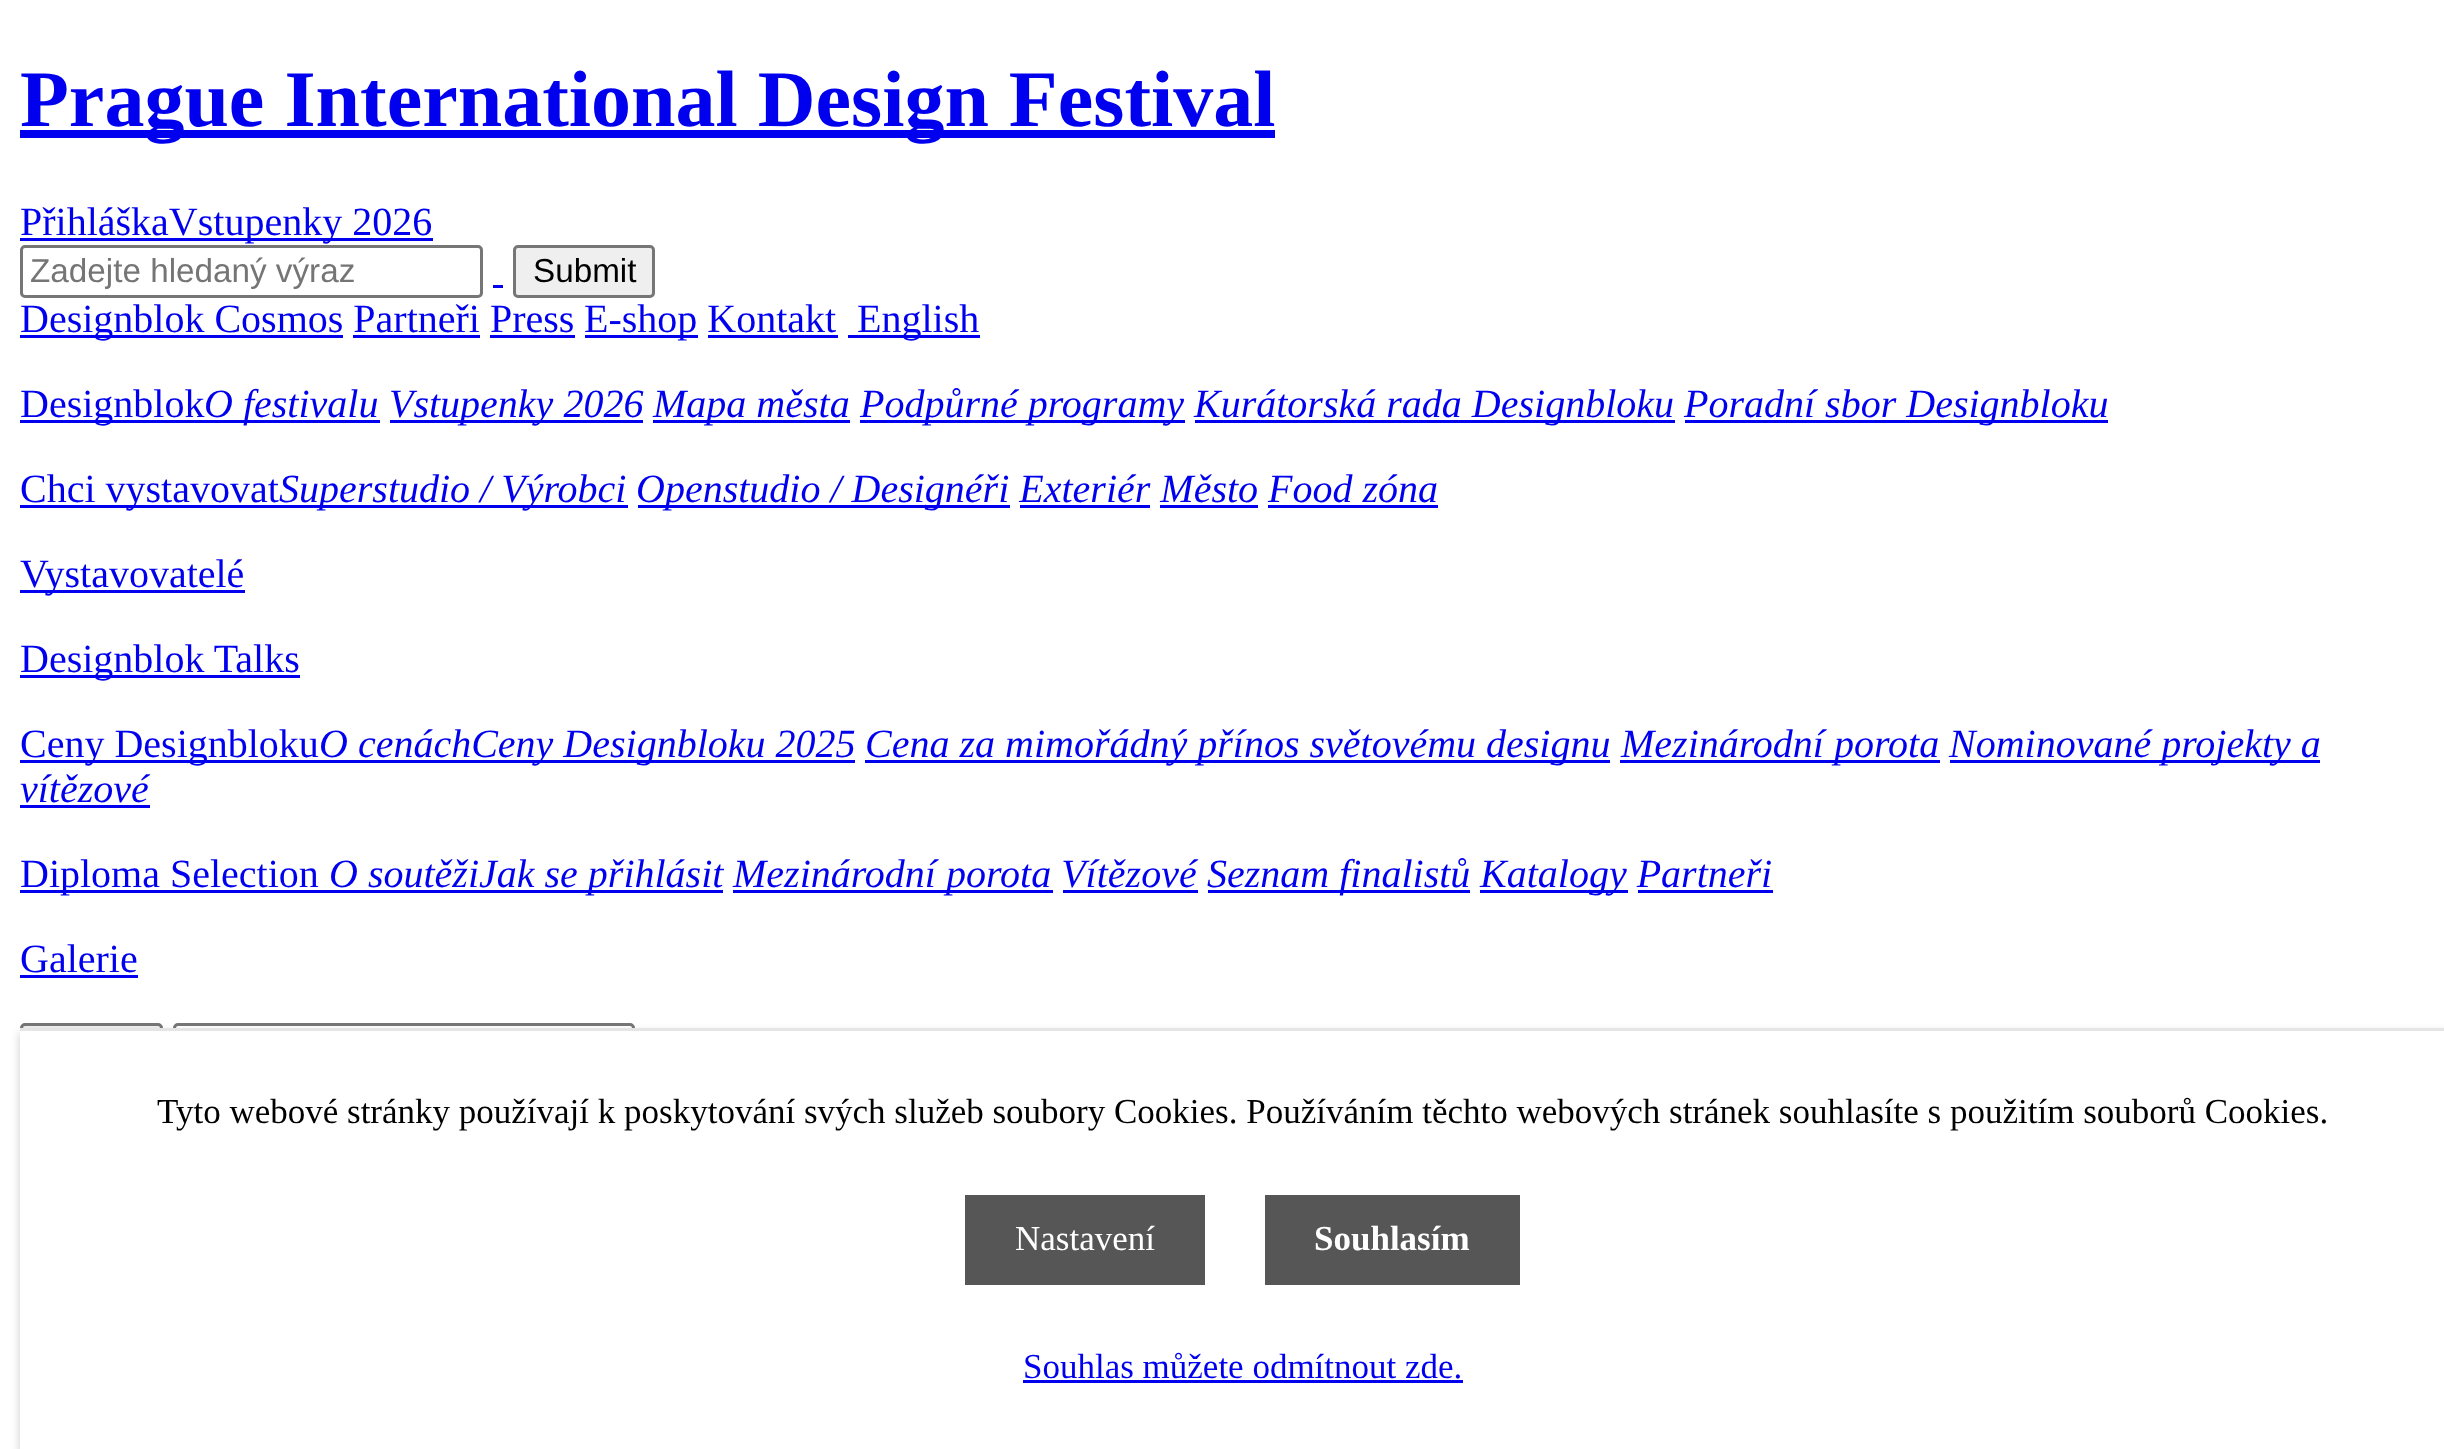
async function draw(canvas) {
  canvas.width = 2444;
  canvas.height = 1449;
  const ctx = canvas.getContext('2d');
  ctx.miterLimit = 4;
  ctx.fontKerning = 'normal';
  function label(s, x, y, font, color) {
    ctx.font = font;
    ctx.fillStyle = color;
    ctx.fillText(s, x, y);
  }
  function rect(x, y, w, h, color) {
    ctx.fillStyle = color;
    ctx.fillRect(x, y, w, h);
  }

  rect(0, 0, 2444, 1449, '#fff');
  rect(20, 130, 1255, 8, '#00e');
  label('Prague International Design Festival', 20, 126, 'bold 80px Liberation Serif', '#00e');
  rect(20, 238, 413, 3, '#00e');
  label('PřihláškaVstupenky 2026', 20, 235, '40px Liberation Serif', '#00e');
  ctx.beginPath();
  ctx.roundRect(21.5, 246.5, 460, 50, 3.5);
  ctx.strokeStyle = '#767676';
  ctx.lineWidth = 3;
  ctx.stroke();
  label('Zadejte hledaný výraz', 30, 282, '33.25px Liberation Sans', '#757575');
  ctx.fillStyle = '#efefef';
  ctx.beginPath();
  ctx.roundRect(514.5, 246.5, 139, 50, 3.5);
  ctx.fill();
  ctx.stroke();
  label('Submit', 533, 282, '33.25px Liberation Sans', '#000');
  rect(493, 285, 10, 3, '#00e');
  rect(20, 335, 323, 3, '#00e');
  label('Designblok Cosmos Partneři Press', 20, 332, '40px Liberation Serif', '#00e');
  rect(585, 335, 113, 3, '#00e');
  label('E-shop Kontakt', 584, 332, '40px Liberation Serif', '#00e');
  rect(848, 335, 132, 3, '#00e');
  label('English', 857, 332, '40px Liberation Serif', '#00e');
  rect(353, 335, 127, 3, '#00e');
  rect(490, 335, 85, 3, '#00e');
  rect(708, 335, 130, 3, '#00e');
  rect(20, 420, 360, 3, '#00e');
  label('Designblok', 20, 417, '40px Liberation Serif', '#00e');
  label('O festivalu', 204, 417, 'italic 40px Liberation Serif', '#00e');
  rect(390, 420, 253, 3, '#00e');
  label('Vstupenky 2026', 389, 417, 'italic 40px Liberation Serif', '#00e');
  rect(653, 420, 197, 3, '#00e');
  label('Mapa města', 653, 417, 'italic 40px Liberation Serif', '#00e');
  rect(860, 420, 325, 3, '#00e');
  label('Podpůrné programy', 860, 417, 'italic 40px Liberation Serif', '#00e');
  rect(1195, 420, 480, 3, '#00e');
  label('Kurátorská rada Designbloku', 1194, 417, 'italic 40px Liberation Serif', '#00e');
  rect(1685, 420, 423, 3, '#00e');
  label('Poradní sbor Designbloku', 1684, 417, 'italic 40px Liberation Serif', '#00e');
  rect(20, 505, 608, 3, '#00e');
  label('Chci vystavovat', 20, 502, '40px Liberation Serif', '#00e');
  label('Superstudio / Výrobci', 279, 502, 'italic 40px Liberation Serif', '#00e');
  rect(638, 505, 372, 3, '#00e');
  label('Openstudio / Designéři Exteriér Město Food zóna', 636, 502, 'italic 40px Liberation Serif', '#00e');
  rect(1020, 505, 130, 3, '#00e');
  rect(1160, 505, 98, 3, '#00e');
  rect(1268, 505, 170, 3, '#00e');
  rect(20, 590, 225, 3, '#00e');
  label('Vystavovatelé', 20, 587, '40px Liberation Serif', '#00e');
  rect(20, 675, 280, 3, '#00e');
  label('Designblok Talks', 20, 672, '40px Liberation Serif', '#00e');
  rect(20, 760, 835, 3, '#00e');
  label('Ceny Designbloku', 20, 757, '40px Liberation Serif', '#00e');
  label('O cenáchCeny Designbloku 2025', 319, 757, 'italic 40px Liberation Serif', '#00e');
  rect(865, 760, 745, 3, '#00e');
  label('Cena za mimořádný přínos světovému designu', 865, 757, 'italic 40px Liberation Serif', '#00e');
  rect(1620, 760, 320, 3, '#00e');
  label('Mezinárodní porota', 1621, 757, 'italic 40px Liberation Serif', '#00e');
  rect(1950, 760, 370, 3, '#00e');
  label('Nominované projekty a', 1949, 757, 'italic 40px Liberation Serif', '#00e');
  label('vítězové', 20, 802, 'italic 40px Liberation Serif', '#00e');
  rect(20, 805, 130, 3, '#00e');
  rect(20, 890, 703, 3, '#00e');
  label('Diploma Selection', 20, 887, '40px Liberation Serif', '#00e');
  label('O soutěžiJak se přihlásit', 329, 887, 'italic 40px Liberation Serif', '#00e');
  rect(733, 890, 320, 3, '#00e');
  label('Mezinárodní porota Vítězové', 733, 887, 'italic 40px Liberation Serif', '#00e');
  rect(1063, 890, 135, 3, '#00e');
  rect(1208, 890, 262, 3, '#00e');
  label('Seznam finalistů', 1207, 887, 'italic 40px Liberation Serif', '#00e');
  rect(1480, 890, 148, 3, '#00e');
  label('Katalogy Partneři', 1480, 887, 'italic 40px Liberation Serif', '#00e');
  rect(1638, 890, 135, 3, '#00e');
  label('Galerie', 20, 972, '40px Liberation Serif', '#00e');
  rect(20, 975, 118, 3, '#00e');
  ctx.fillStyle = '#efefef';
  ctx.beginPath();
  ctx.roundRect(21.5, 1024.5, 140, 49, 3.5);
  ctx.fill();
  ctx.stroke();
  ctx.beginPath();
  ctx.roundRect(174.5, 1024.5, 459, 49, 3.5);
  ctx.stroke();
  ctx.fillStyle = '#00000033';
  ctx.filter = 'blur(5px)';
  ctx.beginPath();
  ctx.rect(20, 1033, 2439, 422);
  ctx.fill();
  ctx.filter = 'none';
  rect(20, 1031, 2424, 418, '#fff');
  rect(20, 1028, 2424, 3, '#e5e5e5');
  label('Tyto webové stránky používají k poskytování svých služeb soubory Cookies. Používáním těchto webových stránek souhlasíte s použitím souborů Cookies.', 157, 1123, '35px Liberation Serif', '#000');
  rect(965, 1195, 240, 90, '#565656');
  label('Nastavení', 1015, 1250, '35px Liberation Serif', '#fff');
  rect(1265, 1195, 255, 90, '#565656');
  label('Souhlasím', 1314, 1250, 'bold 35px Liberation Serif', '#fff');
  label('Souhlas můžete odmítnout zde.', 1023, 1378, '35px Liberation Serif', '#00e');
  rect(1023, 1380, 440, 3, '#00e');
}

draw(document.querySelector('canvas'));
